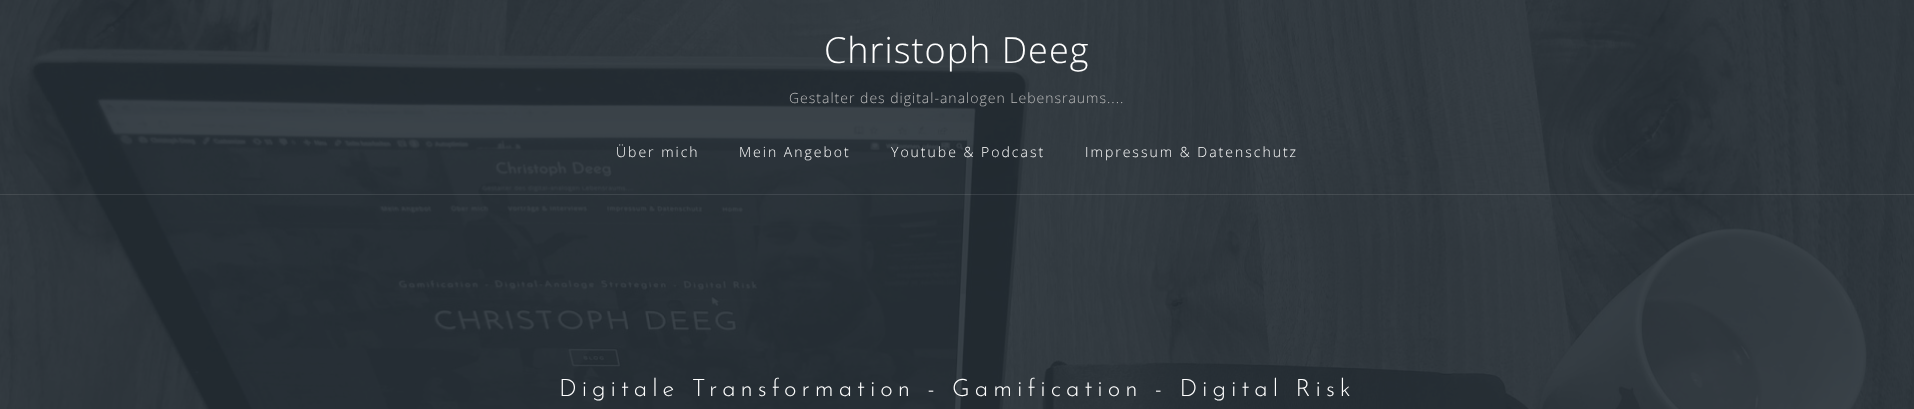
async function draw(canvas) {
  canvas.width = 1914;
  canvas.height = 409;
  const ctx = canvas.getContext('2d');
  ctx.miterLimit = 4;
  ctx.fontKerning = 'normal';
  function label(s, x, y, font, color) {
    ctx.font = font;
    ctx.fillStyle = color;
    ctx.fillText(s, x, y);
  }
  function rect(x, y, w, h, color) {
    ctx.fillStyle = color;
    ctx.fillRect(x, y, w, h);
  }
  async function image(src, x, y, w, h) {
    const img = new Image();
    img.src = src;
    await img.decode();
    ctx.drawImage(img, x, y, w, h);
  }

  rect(0, 0, 1914, 409, '#fff');
  await image('assets/img1.png', 0, 0, 1914, 409);
  rect(0, 194, 1914, 1, '#ffffff1a');
  ctx.letterSpacing = '1px';
  label('Christoph Deeg', 824, 63, '300 36px Open Sans', '#fff');
  label('Gestalter des digital-analogen Lebensraums....', 789, 103, '300 14px Open Sans', '#bdbdbd');
  ctx.letterSpacing = '2px';
  label('Über mich', 616, 157, '300 14px Open Sans', '#fff');
  label('Mein Angebot', 739, 157, '300 14px Open Sans', '#fff');
  label('Youtube & Podcast', 891, 157, '300 14px Open Sans', '#fff');
  label('Impressum & Datenschutz', 1085, 157, '300 14px Open Sans', '#fff');
  ctx.letterSpacing = '5px';
  label('Digitale Transformation - Gamification - Digital Risk', 559, 396, '300 24px Josefin Sans', '#fff');
}

draw(document.querySelector('canvas'));
